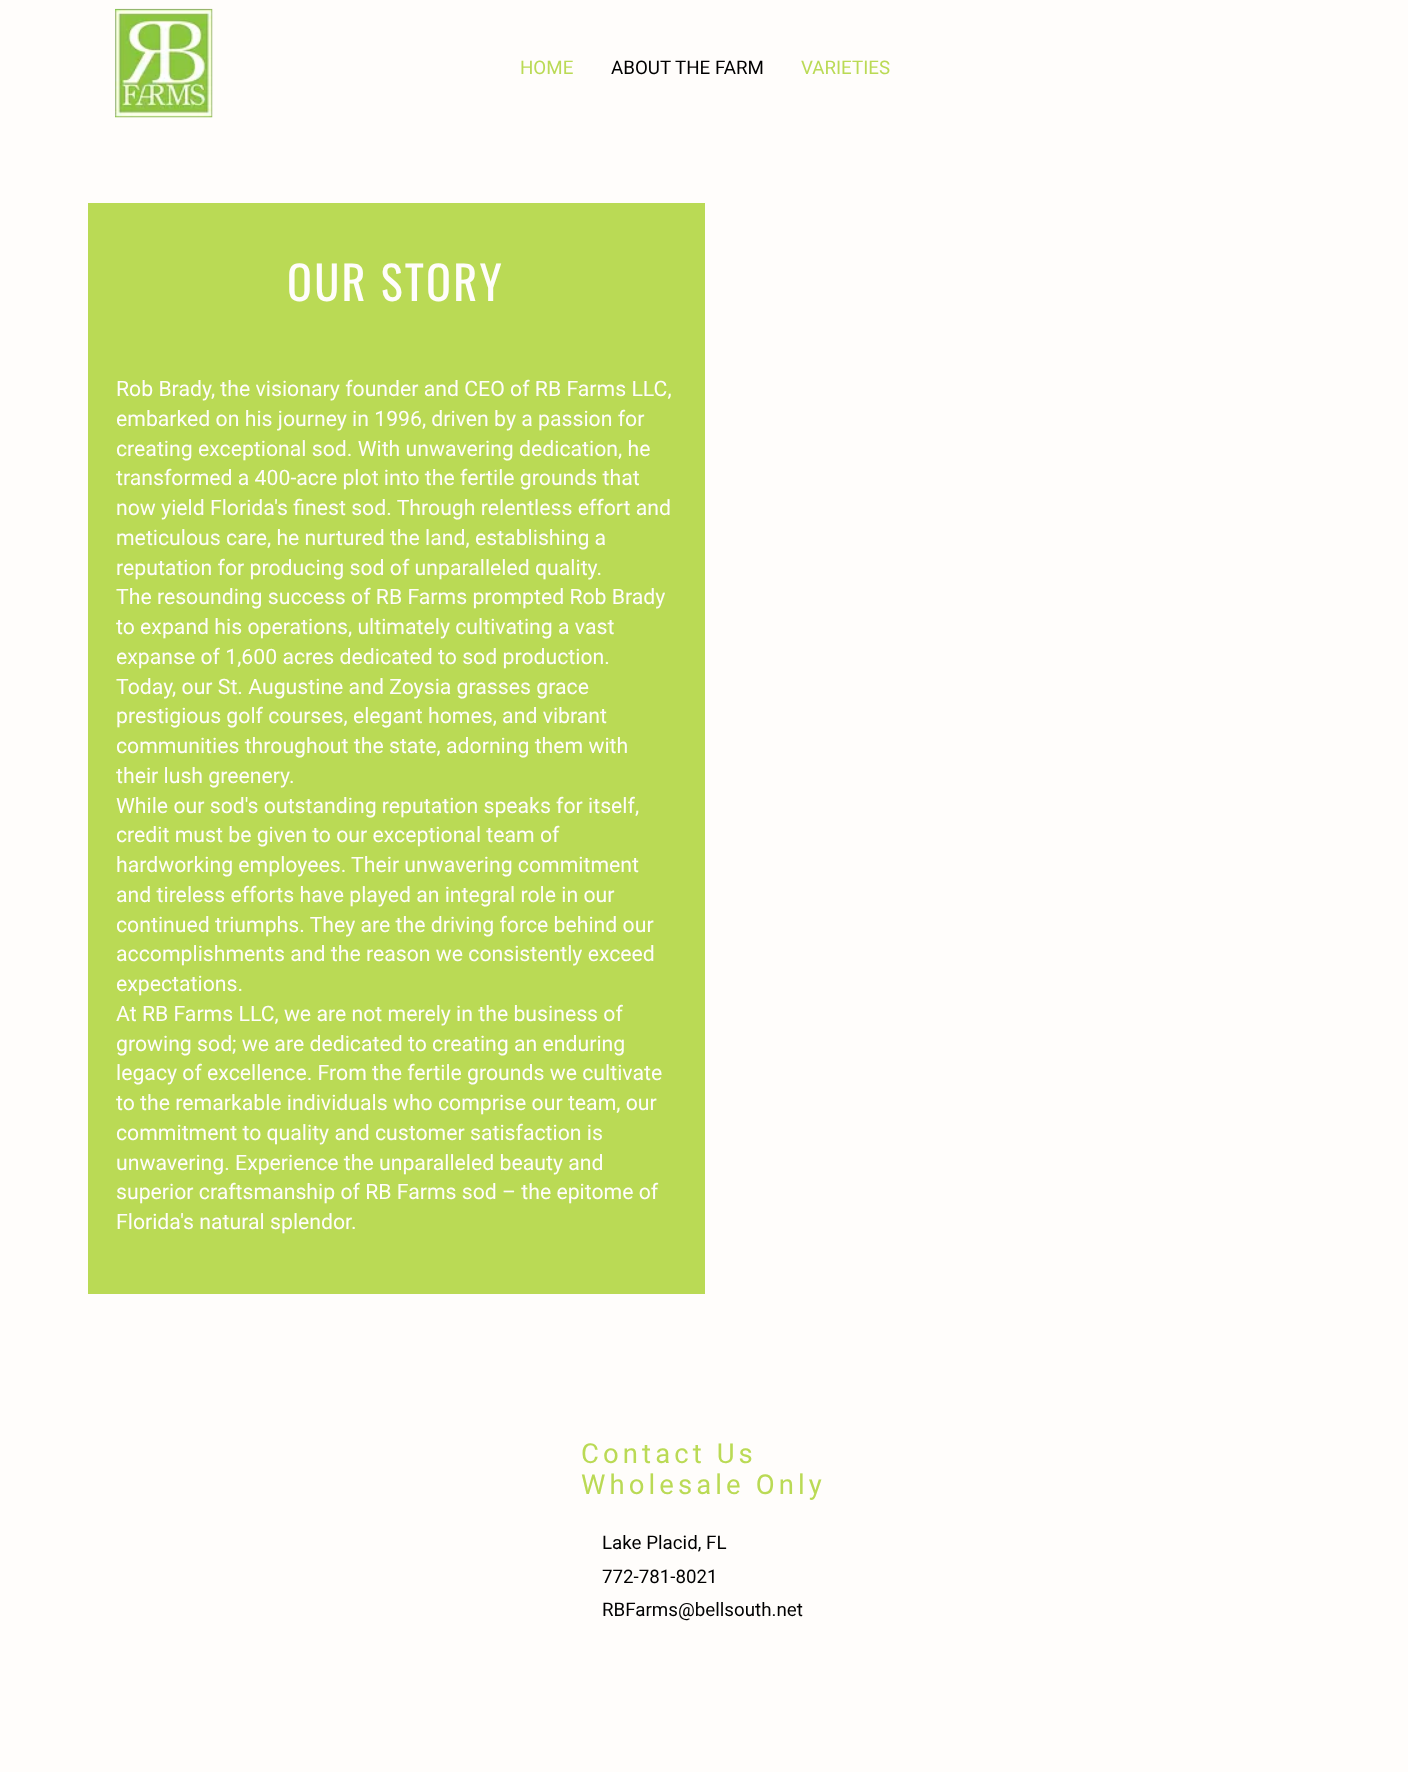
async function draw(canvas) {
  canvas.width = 1408;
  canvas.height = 1772;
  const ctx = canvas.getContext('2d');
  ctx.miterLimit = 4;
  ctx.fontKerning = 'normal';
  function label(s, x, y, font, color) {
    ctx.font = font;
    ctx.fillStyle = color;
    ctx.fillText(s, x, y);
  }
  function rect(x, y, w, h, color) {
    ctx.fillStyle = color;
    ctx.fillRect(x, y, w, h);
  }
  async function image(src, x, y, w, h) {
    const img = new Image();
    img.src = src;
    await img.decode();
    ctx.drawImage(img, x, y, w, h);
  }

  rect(0, 0, 1408, 1772, '#fffdfb');
  await image('assets/img1.png', 115, 8, 98, 110);
  label('HOME', 520, 74, '18.75px Roboto', '#bada55');
  label('ABOUT THE FARM', 611, 74, '18.75px Roboto', '#000');
  label('VARIETIES', 801, 74, '18.75px Roboto', '#bada55');
  rect(88, 203, 617, 1091, '#bada55');
  ctx.letterSpacing = '2.25px';
  label('OUR STORY', 287, 301, '46.25px Oswald', '#fffdfb');
  ctx.letterSpacing = '0px';
  label('Rob Brady, the visionary founder and CEO of RB Farms LLC,', 116, 396, '21.25px Roboto', '#fffdfb');
  label('embarked on his journey in 1996, driven by a passion for', 116, 426, '21.25px Roboto', '#fffdfb');
  label('creating exceptional sod. With unwavering dedication, he', 116, 456, '21.25px Roboto', '#fffdfb');
  label('transformed a 400-acre plot into the fertile grounds that', 116, 485, '21.25px Roboto', '#fffdfb');
  label('now yield Florida\'s finest sod. Through relentless effort and', 116, 515, '21.25px Roboto', '#fffdfb');
  label('meticulous care, he nurtured the land, establishing a', 116, 545, '21.25px Roboto', '#fffdfb');
  label('reputation for producing sod of unparalleled quality.', 116, 575, '21.25px Roboto', '#fffdfb');
  label('The resounding success of RB Farms prompted Rob Brady', 116, 604, '21.25px Roboto', '#fffdfb');
  label('to expand his operations, ultimately cultivating a vast', 116, 634, '21.25px Roboto', '#fffdfb');
  label('expanse of 1,600 acres dedicated to sod production.', 116, 664, '21.25px Roboto', '#fffdfb');
  label('Today, our St. Augustine and Zoysia grasses grace', 116, 694, '21.25px Roboto', '#fffdfb');
  label('prestigious golf courses, elegant homes, and vibrant', 116, 723, '21.25px Roboto', '#fffdfb');
  label('communities throughout the state, adorning them with', 116, 753, '21.25px Roboto', '#fffdfb');
  label('their lush greenery.', 116, 783, '21.25px Roboto', '#fffdfb');
  label('While our sod\'s outstanding reputation speaks for itself,', 116, 813, '21.25px Roboto', '#fffdfb');
  label('credit must be given to our exceptional team of', 116, 842, '21.25px Roboto', '#fffdfb');
  label('hardworking employees. Their unwavering commitment', 116, 872, '21.25px Roboto', '#fffdfb');
  label('and tireless efforts have played an integral role in our', 116, 902, '21.25px Roboto', '#fffdfb');
  label('continued triumphs. They are the driving force behind our', 116, 932, '21.25px Roboto', '#fffdfb');
  label('accomplishments and the reason we consistently exceed', 116, 961, '21.25px Roboto', '#fffdfb');
  label('expectations.', 116, 991, '21.25px Roboto', '#fffdfb');
  label('At RB Farms LLC, we are not merely in the business of', 116, 1021, '21.25px Roboto', '#fffdfb');
  label('growing sod; we are dedicated to creating an enduring', 116, 1051, '21.25px Roboto', '#fffdfb');
  label('legacy of excellence. From the fertile grounds we cultivate', 116, 1080, '21.25px Roboto', '#fffdfb');
  label('to the remarkable individuals who comprise our team, our', 116, 1110, '21.25px Roboto', '#fffdfb');
  label('commitment to quality and customer satisfaction is', 116, 1140, '21.25px Roboto', '#fffdfb');
  label('unwavering. Experience the unparalleled beauty and', 116, 1170, '21.25px Roboto', '#fffdfb');
  label('superior craftsmanship of RB Farms sod – the epitome of', 116, 1199, '21.25px Roboto', '#fffdfb');
  label('Florida\'s natural splendor.', 116, 1229, '21.25px Roboto', '#fffdfb');
  ctx.letterSpacing = '4.1px';
  label('Contact Us', 581, 1463, '27.5px Roboto', '#bada55');
  label('Wholesale Only', 581, 1494, '27.5px Roboto', '#bada55');
  ctx.letterSpacing = '0px';
  label('Lake Placid, FL', 602, 1549, '18.75px Roboto', '#000');
  label('772-781-8021', 602, 1583, '18.75px Roboto', '#000');
  label('RBFarms@bellsouth.net', 602, 1616, '18.75px Roboto', '#000');
}

draw(document.querySelector('canvas'));
